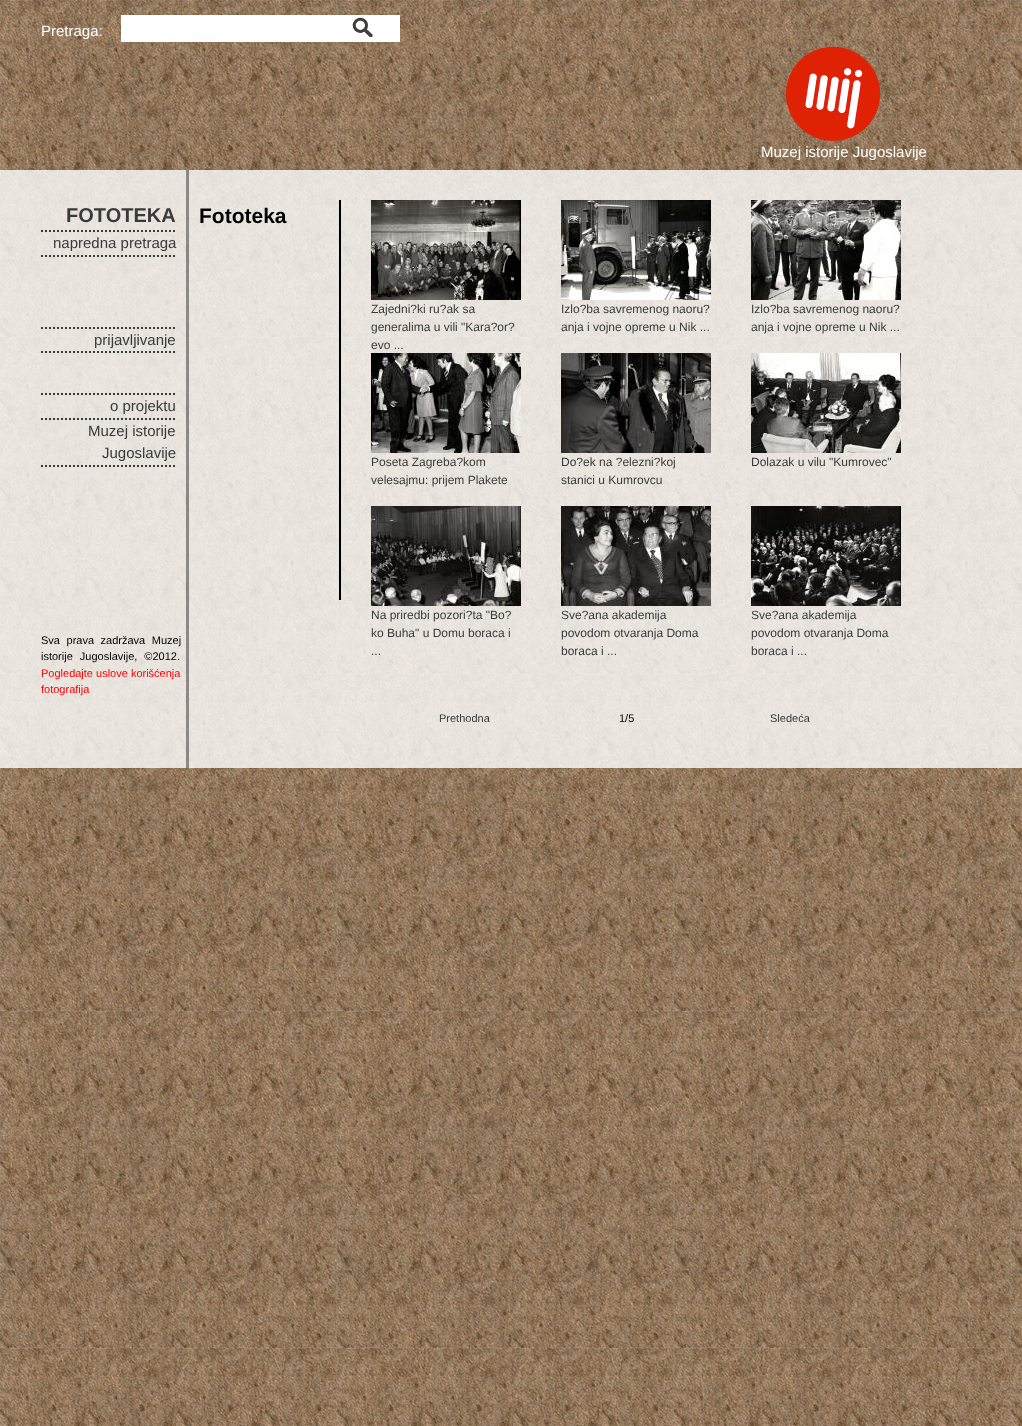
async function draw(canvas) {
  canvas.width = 1022;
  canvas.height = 1426;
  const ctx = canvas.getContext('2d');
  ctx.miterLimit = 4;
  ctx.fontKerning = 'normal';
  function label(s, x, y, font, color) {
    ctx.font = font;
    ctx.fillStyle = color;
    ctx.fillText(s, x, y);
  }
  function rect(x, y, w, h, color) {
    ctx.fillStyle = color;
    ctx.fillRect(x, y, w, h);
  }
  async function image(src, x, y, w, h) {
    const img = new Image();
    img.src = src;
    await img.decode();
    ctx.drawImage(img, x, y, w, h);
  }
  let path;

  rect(0, 0, 1022, 1426, '#fff');
  await image('assets/img1.png', 0, 0, 1022, 1426);
  label('Pretraga:', 41, 36, '15px Liberation Sans', '#fff');
  rect(121, 15, 204, 27, '#fff');
  await image('assets/img2.png', 325, 15, 75, 27);
  await image('assets/img3.png', 786, 46, 94, 95);
  label('Muzej istorije Jugoslavije', 761, 157, '15px Liberation Sans', '#fff');
  rect(0, 170, 1022, 598, '#ffffffcc');
  rect(186, 170, 3, 598, '#00000066');
  path = new Path2D('M41 231H176');
  ctx.strokeStyle = '#393a39';
  ctx.lineWidth = 2;
  ctx.setLineDash([2, 2]);
  ctx.stroke(path);
  label('FOTOTEKA', 66, 222, 'bold 20px Liberation Sans', '#393a39');
  path = new Path2D('M41 256H176');
  ctx.stroke(path);
  label('napredna pretraga', 53, 248, '15px Liberation Sans', '#393a39');
  path = new Path2D('M41 328H176');
  ctx.stroke(path);
  path = new Path2D('M41 352H176');
  ctx.stroke(path);
  label('prijavljivanje', 94, 345, '15px Liberation Sans', '#393a39');
  path = new Path2D('M41 394H176');
  ctx.stroke(path);
  path = new Path2D('M41 419H176');
  ctx.stroke(path);
  label('o projektu', 110, 411, '15px Liberation Sans', '#393a39');
  path = new Path2D('M41 466H176');
  ctx.stroke(path);
  label('Muzej istorije', 88, 436, '15px Liberation Sans', '#393a39');
  label('Jugoslavije', 102, 458, '15px Liberation Sans', '#393a39');
  ctx.wordSpacing = '3.5px';
  label('Sva prava zadržava Muzej', 41, 644, '11px Liberation Sans', '#000');
  ctx.wordSpacing = '4px';
  label('istorije Jugoslavije, ©2012.', 41, 660, '11px Liberation Sans', '#000');
  ctx.wordSpacing = '0px';
  label('Pogledajte uslove korišćenja', 41, 677, '11px Liberation Sans', '#f00');
  label('fotografija', 41, 693, '11px Liberation Sans', '#f00');
  rect(339, 200, 2, 400, '#000');
  label('Fototeka', 199, 223, 'bold 21px Liberation Sans', '#000');
  await image('assets/img4.png', 371, 200, 150, 100);
  label('Zajedni?ki ru?ak sa', 371, 313, '12px Liberation Sans', '#393a39');
  label('generalima u vili "Kara?or?', 371, 331, '12px Liberation Sans', '#393a39');
  label('evo ...', 371, 349, '12px Liberation Sans', '#393a39');
  await image('assets/img5.png', 561, 200, 150, 100);
  label('Izlo?ba savremenog naoru?', 561, 313, '12px Liberation Sans', '#393a39');
  label('anja i vojne opreme u Nik ...', 561, 331, '12px Liberation Sans', '#393a39');
  await image('assets/img6.png', 751, 200, 150, 100);
  label('Izlo?ba savremenog naoru?', 751, 313, '12px Liberation Sans', '#393a39');
  label('anja i vojne opreme u Nik ...', 751, 331, '12px Liberation Sans', '#393a39');
  await image('assets/img7.png', 371, 353, 150, 100);
  label('Poseta Zagreba?kom', 371, 466, '12px Liberation Sans', '#393a39');
  label('velesajmu: prijem Plakete', 371, 484, '12px Liberation Sans', '#393a39');
  await image('assets/img8.png', 561, 353, 150, 100);
  label('Do?ek na ?elezni?koj', 561, 466, '12px Liberation Sans', '#393a39');
  label('stanici u Kumrovcu', 561, 484, '12px Liberation Sans', '#393a39');
  await image('assets/img9.png', 751, 353, 150, 100);
  label('Dolazak u vilu "Kumrovec"', 751, 466, '12px Liberation Sans', '#393a39');
  await image('assets/img10.png', 371, 506, 150, 100);
  label('Na priredbi pozori?ta "Bo?', 371, 619, '12px Liberation Sans', '#393a39');
  label('ko Buha" u Domu boraca i', 371, 637, '12px Liberation Sans', '#393a39');
  label('...', 371, 655, '12px Liberation Sans', '#393a39');
  await image('assets/img11.png', 561, 506, 150, 100);
  label('Sve?ana akademija', 561, 619, '12px Liberation Sans', '#393a39');
  label('povodom otvaranja Doma', 561, 637, '12px Liberation Sans', '#393a39');
  label('boraca i ...', 561, 655, '12px Liberation Sans', '#393a39');
  await image('assets/img12.png', 751, 506, 150, 100);
  label('Sve?ana akademija', 751, 619, '12px Liberation Sans', '#393a39');
  label('povodom otvaranja Doma', 751, 637, '12px Liberation Sans', '#393a39');
  label('boraca i ...', 751, 655, '12px Liberation Sans', '#393a39');
  label('Prethodna', 439, 722, '11px Liberation Sans', '#393a39');
  label('1/5', 619, 722, '11px Liberation Sans', '#000');
  label('Sledeća', 770, 722, '11px Liberation Sans', '#393a39');
}

draw(document.querySelector('canvas'));
